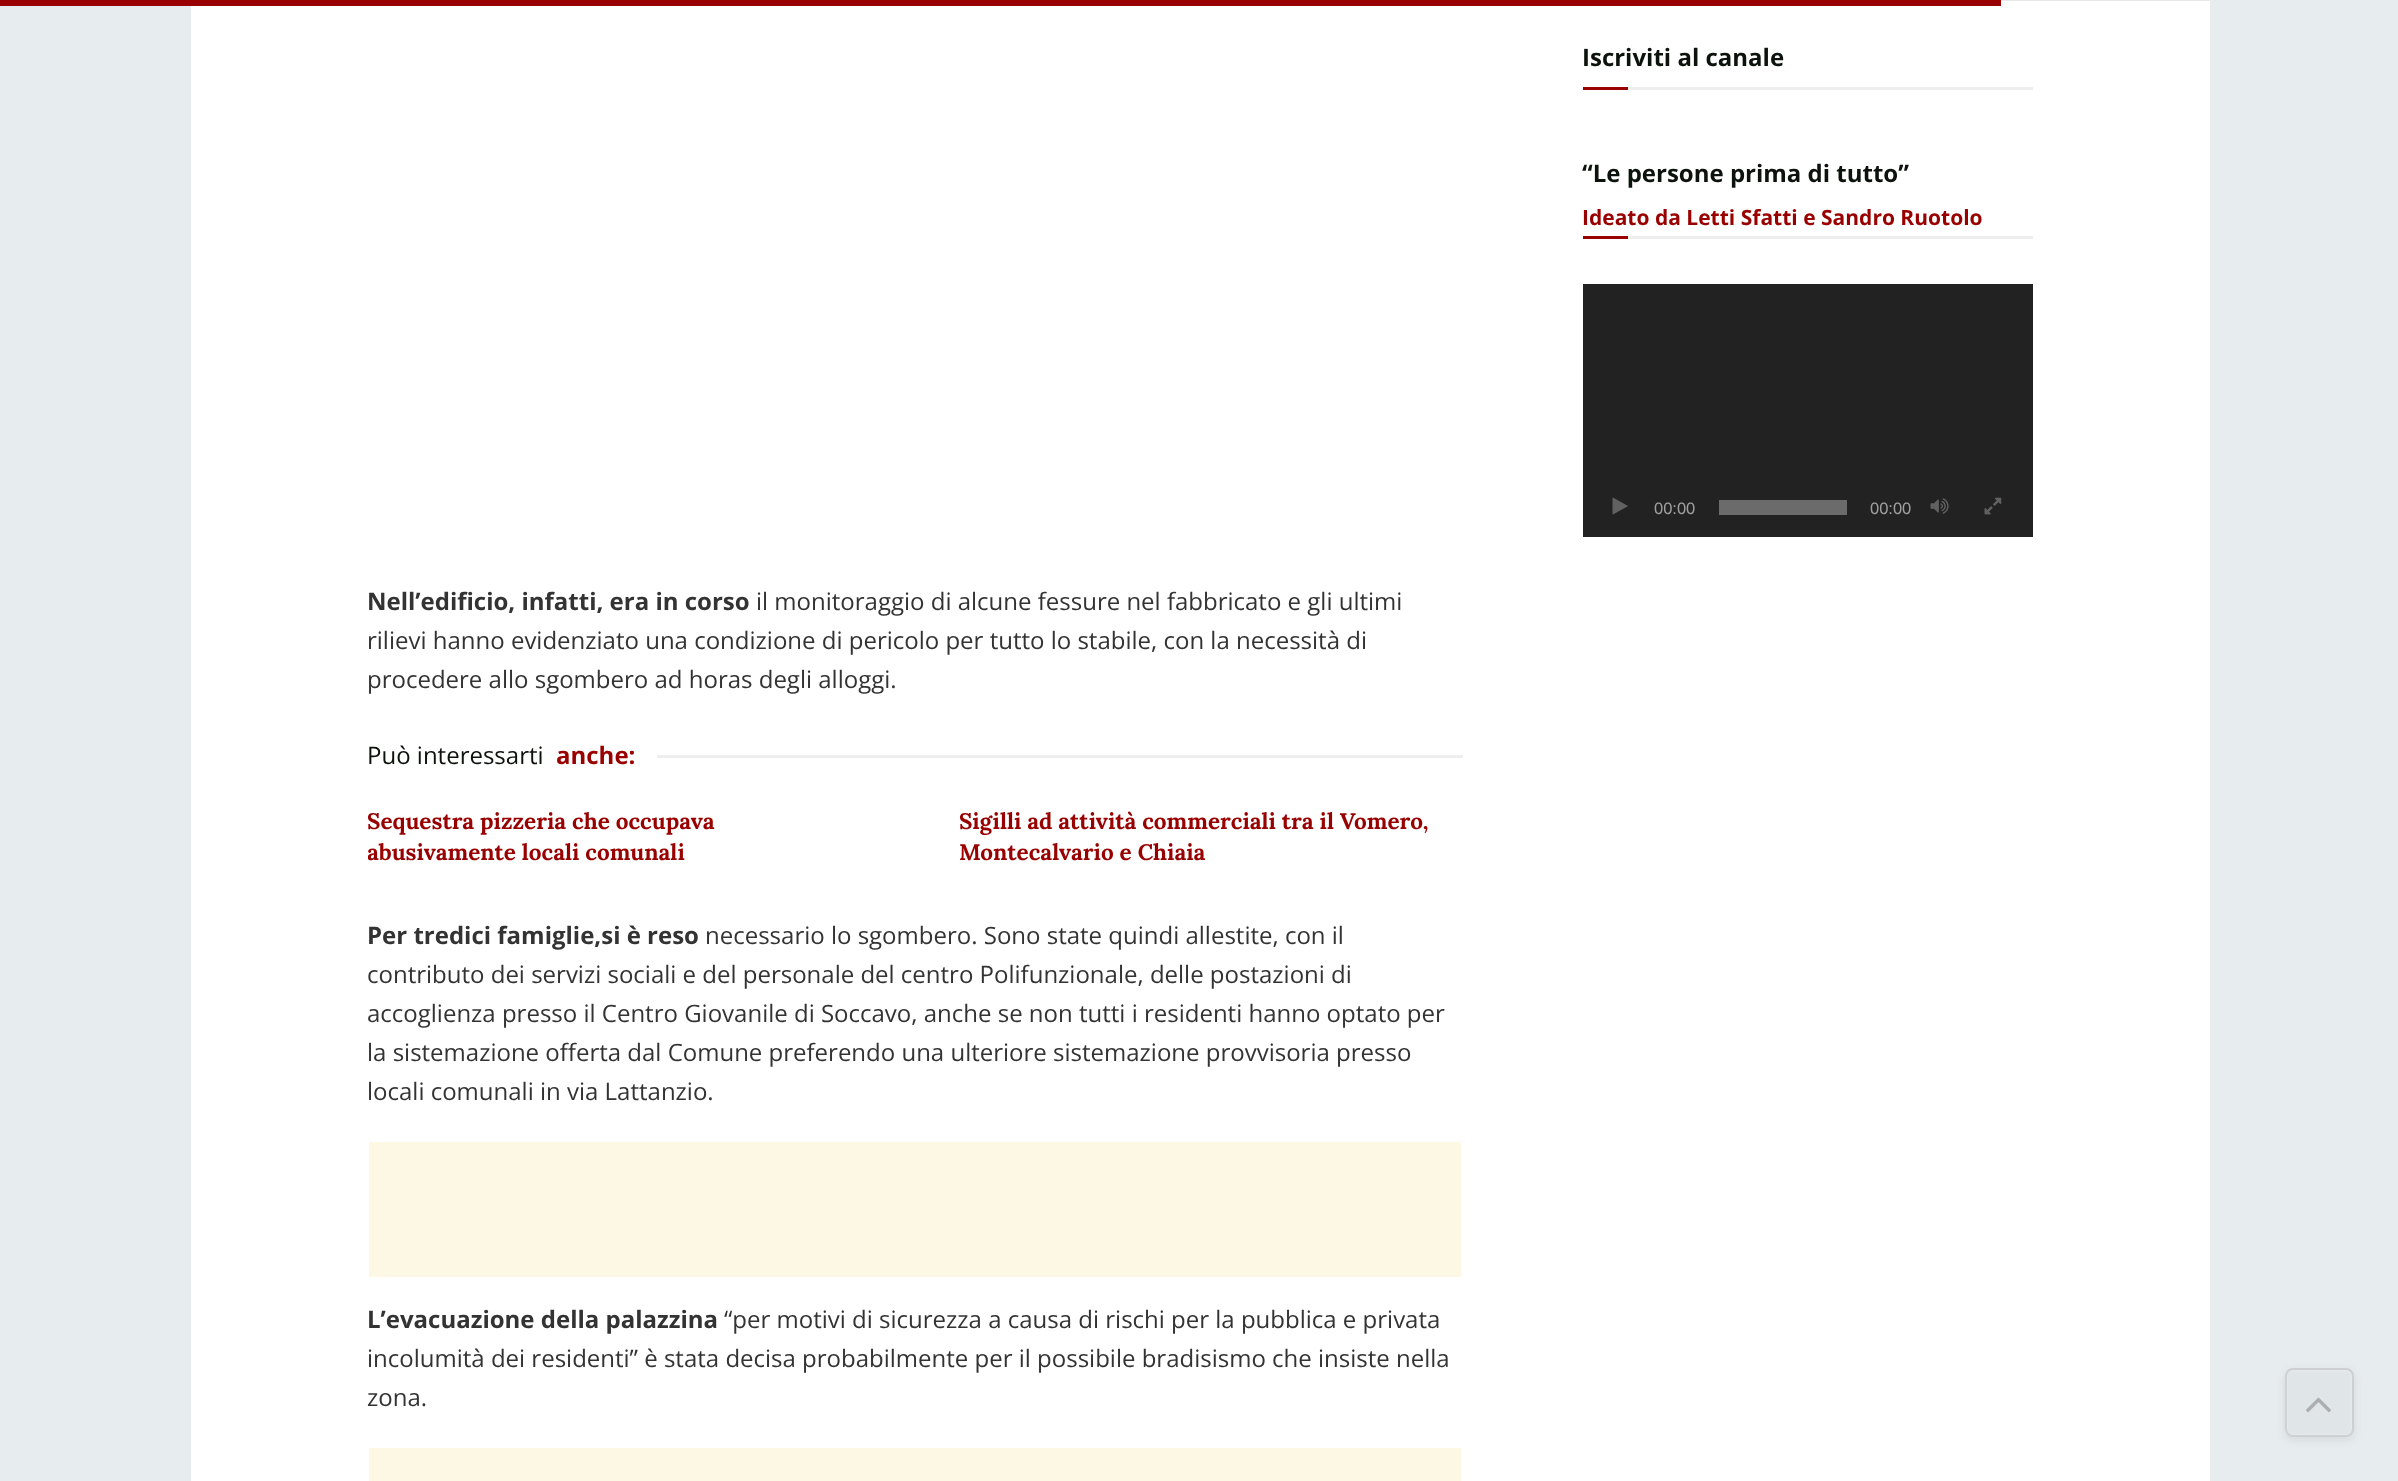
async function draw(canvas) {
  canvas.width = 2398;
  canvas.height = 1481;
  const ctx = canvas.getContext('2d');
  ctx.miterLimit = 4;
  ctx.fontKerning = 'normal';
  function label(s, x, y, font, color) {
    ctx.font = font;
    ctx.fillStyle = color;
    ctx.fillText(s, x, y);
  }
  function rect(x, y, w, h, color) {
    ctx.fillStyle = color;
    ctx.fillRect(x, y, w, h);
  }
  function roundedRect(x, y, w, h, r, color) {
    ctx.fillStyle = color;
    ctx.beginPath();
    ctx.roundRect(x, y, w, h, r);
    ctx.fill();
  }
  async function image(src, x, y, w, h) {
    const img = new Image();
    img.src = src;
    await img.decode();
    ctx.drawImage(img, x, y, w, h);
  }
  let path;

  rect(0, 0, 2398, 1481, '#e7ecef');
  rect(191, 1, 2019, 1480, '#fff');
  rect(0, 0, 2001, 6, '#900');
  rect(2001, 0, 209, 1, '#e8e8e8');
  rect(1628, 87, 405, 3, '#eee');
  label('Iscriviti al canale', 1582, 66, 'bold 24px Open Sans', '#0c120c');
  rect(1583, 87, 45, 3, '#900');
  rect(1628, 236, 405, 3, '#eee');
  label('“Le persone prima di tutto”', 1582, 182, 'bold 24px Open Sans', '#0c120c');
  label('Ideato da Letti Sfatti e Sandro Ruotolo', 1582, 225, 'bold 21px Open Sans', '#900');
  rect(1583, 236, 45, 3, '#900');
  rect(1583, 284, 450, 253, '#222');
  await image('assets/img1.png', 1612, 497, 16, 18);
  label('00:00', 1654, 514, '16.5px Liberation Sans', '#a0a0a0');
  rect(1719, 500, 128, 15, '#6b6b6b');
  label('00:00', 1870, 514, '16.5px Liberation Sans', '#a0a0a0');
  await image('assets/img2.png', 1930, 498, 19, 16);
  await image('assets/img3.png', 1984, 497, 18, 18);
  label('Nell’edificio, infatti, era in corso', 367, 610, 'bold 24px Open Sans', '#333');
  label('il monitoraggio di alcune fessure nel fabbricato e gli ultimi', 756, 610, '24px Open Sans', '#333');
  label('rilievi hanno evidenziato una condizione di pericolo per tutto lo stabile, con la necessità di', 367, 649, '24px Open Sans', '#333');
  label('procedere allo sgombero ad horas degli alloggi.', 367, 688, '24px Open Sans', '#333');
  label('Può interessarti', 367, 764, '24px Open Sans', '#0c120c');
  label('anche:', 556, 764, 'bold 24px Open Sans', '#900');
  rect(657, 755, 806, 3, '#eee');
  ctx.save();
  ctx.beginPath();
  ctx.rect(368, 806, 502, 63);
  ctx.clip();
  label('Sequestra pizzeria che occupava', 367, 829, 'bold 22.5px Lora', '#900');
  label('abusivamente locali comunali', 367, 860, 'bold 22.5px Lora', '#900');
  ctx.restore();
  label('Sigilli ad attività commerciali tra il Vomero,', 959, 829, 'bold 22.5px Lora', '#900');
  label('Montecalvario e Chiaia', 959, 860, 'bold 22.5px Lora', '#900');
  label('Per tredici famiglie,si è reso', 367, 944, 'bold 24px Open Sans', '#333');
  label('necessario lo sgombero. Sono state quindi allestite, con il', 705, 944, '24px Open Sans', '#333');
  label('contributo dei servizi sociali e del personale del centro Polifunzionale, delle postazioni di', 367, 983, '24px Open Sans', '#333');
  label('accoglienza presso il Centro Giovanile di Soccavo, anche se non tutti i residenti hanno optato per', 367, 1022, '24px Open Sans', '#333');
  label('la sistemazione offerta dal Comune preferendo una ulteriore sistemazione provvisoria presso', 367, 1061, '24px Open Sans', '#333');
  label('locali comunali in via Lattanzio.', 367, 1100, '24px Open Sans', '#333');
  rect(369, 1142, 1092, 135, '#fcf8e3');
  label('L’evacuazione della palazzina', 367, 1328, 'bold 24px Open Sans', '#333');
  label('“per motivi di sicurezza a causa di rischi per la pubblica e privata', 724, 1328, '24px Open Sans', '#333');
  label('incolumità dei residenti” è stata decisa probabilmente per il possibile bradisismo che insiste nella', 367, 1367, '24px Open Sans', '#333');
  label('zona.', 367, 1406, '24px Open Sans', '#333');
  rect(369, 1448, 1092, 33, '#fcf8e3');
  ctx.save();
  path = new Path2D('M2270 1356H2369V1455H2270ZM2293 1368H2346C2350.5 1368 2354 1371.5 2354 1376V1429C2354 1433.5 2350.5 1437 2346 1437H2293C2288.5 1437 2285 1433.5 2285 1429V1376C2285 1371.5 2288.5 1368 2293 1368Z');
  ctx.clip(path, 'evenodd');
  ctx.fillStyle = '#2e2f301a';
  ctx.filter = 'blur(4.5px)';
  ctx.beginPath();
  ctx.roundRect(2285, 1371, 69, 69, 8);
  ctx.fill();
  ctx.filter = 'none';
  ctx.restore();
  roundedRect(2285, 1368, 69, 69, 8, '#bfc0c126');
  ctx.beginPath();
  ctx.roundRect(2287, 1371, 64, 64, 5);
  ctx.strokeStyle = '#e4e8ea';
  ctx.lineWidth = 2;
  ctx.stroke();
  ctx.beginPath();
  ctx.roundRect(2286, 1369, 67, 67, 7);
  ctx.strokeStyle = '#2e2f301c';
  ctx.stroke();
  await image('assets/img4.png', 2306, 1397, 25, 16);
}

draw(document.querySelector('canvas'));
